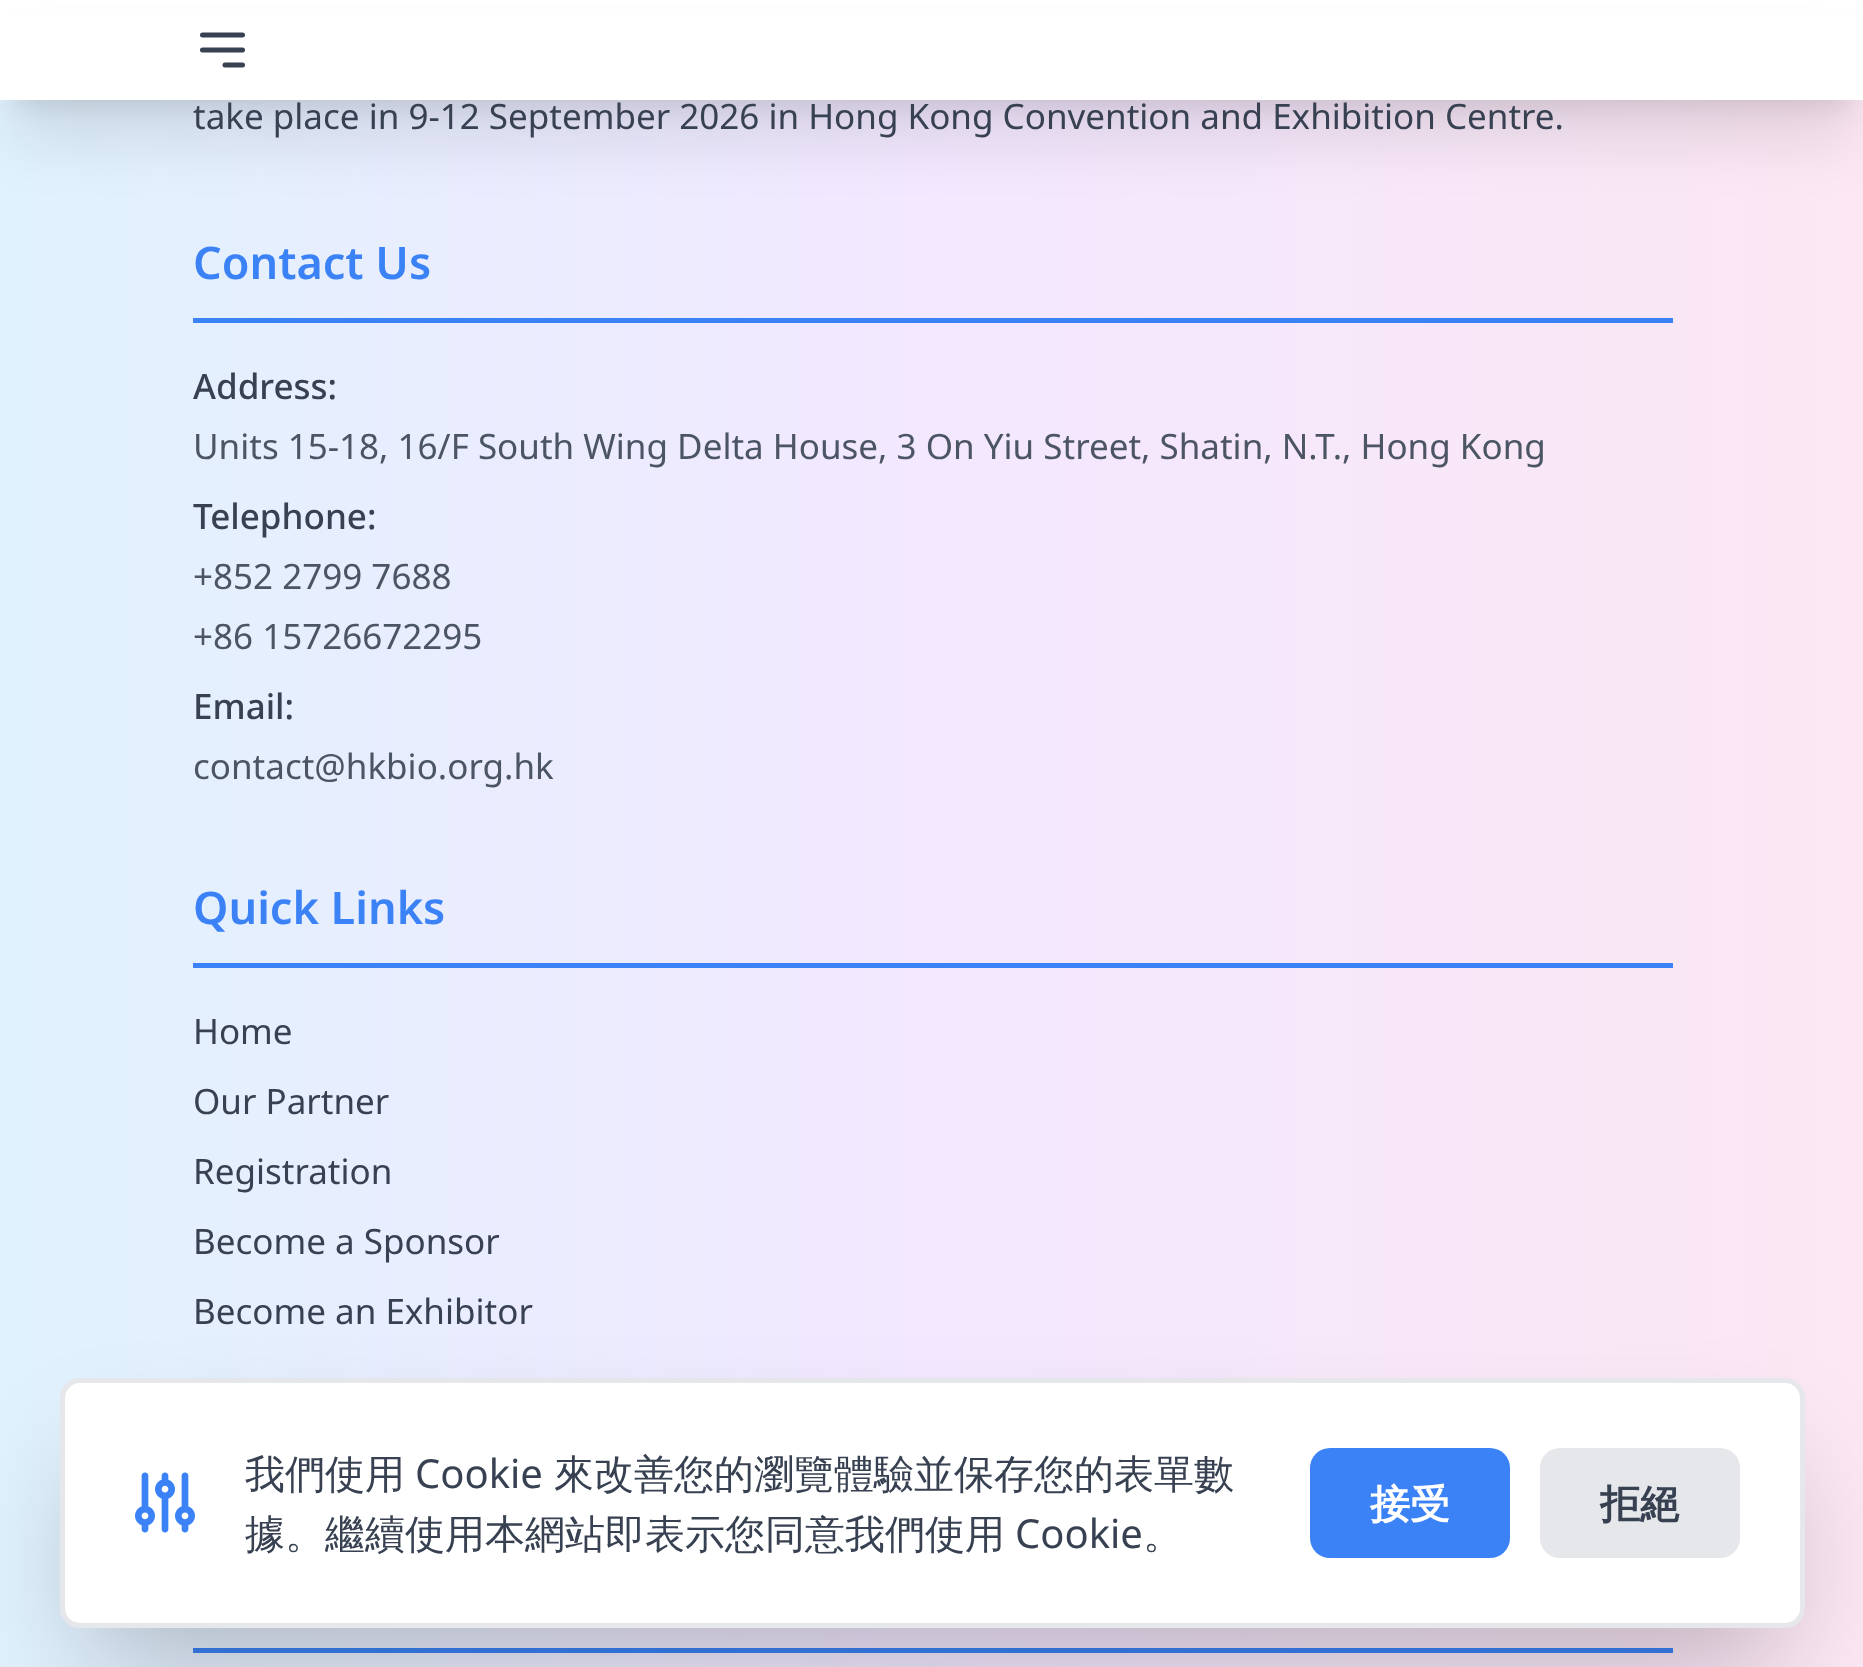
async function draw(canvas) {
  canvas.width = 1863;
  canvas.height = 1667;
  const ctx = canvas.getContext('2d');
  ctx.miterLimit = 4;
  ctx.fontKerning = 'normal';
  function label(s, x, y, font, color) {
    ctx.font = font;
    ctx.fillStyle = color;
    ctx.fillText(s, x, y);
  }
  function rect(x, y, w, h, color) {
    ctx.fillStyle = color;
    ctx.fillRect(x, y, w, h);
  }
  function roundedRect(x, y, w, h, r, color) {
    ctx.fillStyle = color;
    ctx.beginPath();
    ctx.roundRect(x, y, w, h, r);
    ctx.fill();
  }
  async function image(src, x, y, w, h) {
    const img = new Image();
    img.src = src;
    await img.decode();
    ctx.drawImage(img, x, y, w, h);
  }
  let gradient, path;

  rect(0, 0, 1863, 1667, '#fff');
  gradient = ctx.createLinearGradient(0, 1046, 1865, 1046);
  gradient.addColorStop(0, '#e0f2fe');
  gradient.addColorStop(0.5, '#f3e8ff');
  gradient.addColorStop(1, '#fce7f3');
  ctx.fillStyle = gradient;
  ctx.fillRect(0, 100, 1863, 1567);
  ctx.fillStyle = '#0000001a';
  ctx.filter = 'blur(12.5px)';
  ctx.beginPath();
  ctx.rect(15, 35, 1835, 70);
  ctx.fill();
  ctx.filter = 'none';
  ctx.filter = 'blur(31px)';
  ctx.beginPath();
  ctx.rect(13, 63, 1840, 75);
  ctx.fill();
  ctx.filter = 'none';
  rect(0, 14, 1863, 86, '#fff');
  path = new Path2D('M202.5 35H242.5M202.5 50H242.5M225 65H242.5');
  ctx.strokeStyle = '#374151';
  ctx.lineWidth = 5;
  ctx.lineCap = 'round';
  ctx.lineJoin = 'round';
  ctx.stroke(path);
  label('take place in 9-12 September 2026 in Hong Kong Convention and Exhibition Centre.', 193, 129, '35px Noto Sans', '#374151');
  rect(193, 318, 1480, 5, '#3b82f6');
  label('Contact Us', 193, 279, '600 45px Noto Sans', '#3b82f6');
  label('Address:', 193, 399, '500 35px Noto Sans', '#374151');
  label('Units 15-18, 16/F South Wing Delta House, 3 On Yiu Street, Shatin, N.T., Hong Kong', 193, 459, '35px Noto Sans', '#4b5563');
  label('Telephone:', 193, 529, '500 35px Noto Sans', '#374151');
  label('+852 2799 7688', 193, 589, '35px Noto Sans', '#4b5563');
  label('+86 15726672295', 193, 649, '35px Noto Sans', '#4b5563');
  label('Email:', 193, 719, '500 35px Noto Sans', '#374151');
  label('contact@hkbio.org.hk', 193, 779, '35px Noto Sans', '#4b5563');
  rect(193, 963, 1480, 5, '#3b82f6');
  label('Quick Links', 193, 924, '600 45px Noto Sans', '#3b82f6');
  label('Home', 193, 1044, '35px Noto Sans', '#374151');
  label('Our Partner', 193, 1114, '35px Noto Sans', '#374151');
  label('Registration', 193, 1184, '35px Noto Sans', '#374151');
  label('Become a Sponsor', 193, 1254, '35px Noto Sans', '#374151');
  label('Become an Exhibitor', 193, 1324, '35px Noto Sans', '#374151');
  rect(193, 1648, 1480, 5, '#3b82f6');
  ctx.fillStyle = '#00000040';
  ctx.filter = 'blur(62.5px)';
  ctx.beginPath();
  ctx.rect(90, 1470, 1685, 190);
  ctx.fill();
  ctx.filter = 'none';
  ctx.fillStyle = '#fff';
  ctx.beginPath();
  ctx.roundRect(62.5, 1380.5, 1740, 245, 17.5);
  ctx.fill();
  ctx.strokeStyle = '#e5e7eb';
  ctx.lineJoin = 'miter';
  ctx.stroke();
  await image('assets/img1.png', 135, 1472, 60, 61);
  label('我們使用', 245, 1488, '500 40px WenQuanYi Zen Hei', '#374151');
  label('Cookie', 415, 1488, '40px Noto Sans', '#374151');
  label('來改善您的瀏覽體驗並保存您的表單數', 554, 1488, '500 40px WenQuanYi Zen Hei', '#374151');
  label('據。繼續使用本網站即表示您同意我們使用', 245, 1548, '500 40px WenQuanYi Zen Hei', '#374151');
  label('Cookie', 1015, 1548, '40px Noto Sans', '#374151');
  label('。', 1143, 1548, '500 40px WenQuanYi Zen Hei', '#374151');
  roundedRect(1310, 1448, 200, 110, 20, '#3b82f6');
  label('接受', 1370, 1518, 'bold 40px WenQuanYi Zen Hei', '#fff');
  roundedRect(1540, 1448, 200, 110, 20, '#e5e7eb');
  label('拒絕', 1600, 1518, 'bold 40px WenQuanYi Zen Hei', '#374151');
}

draw(document.querySelector('canvas'));
